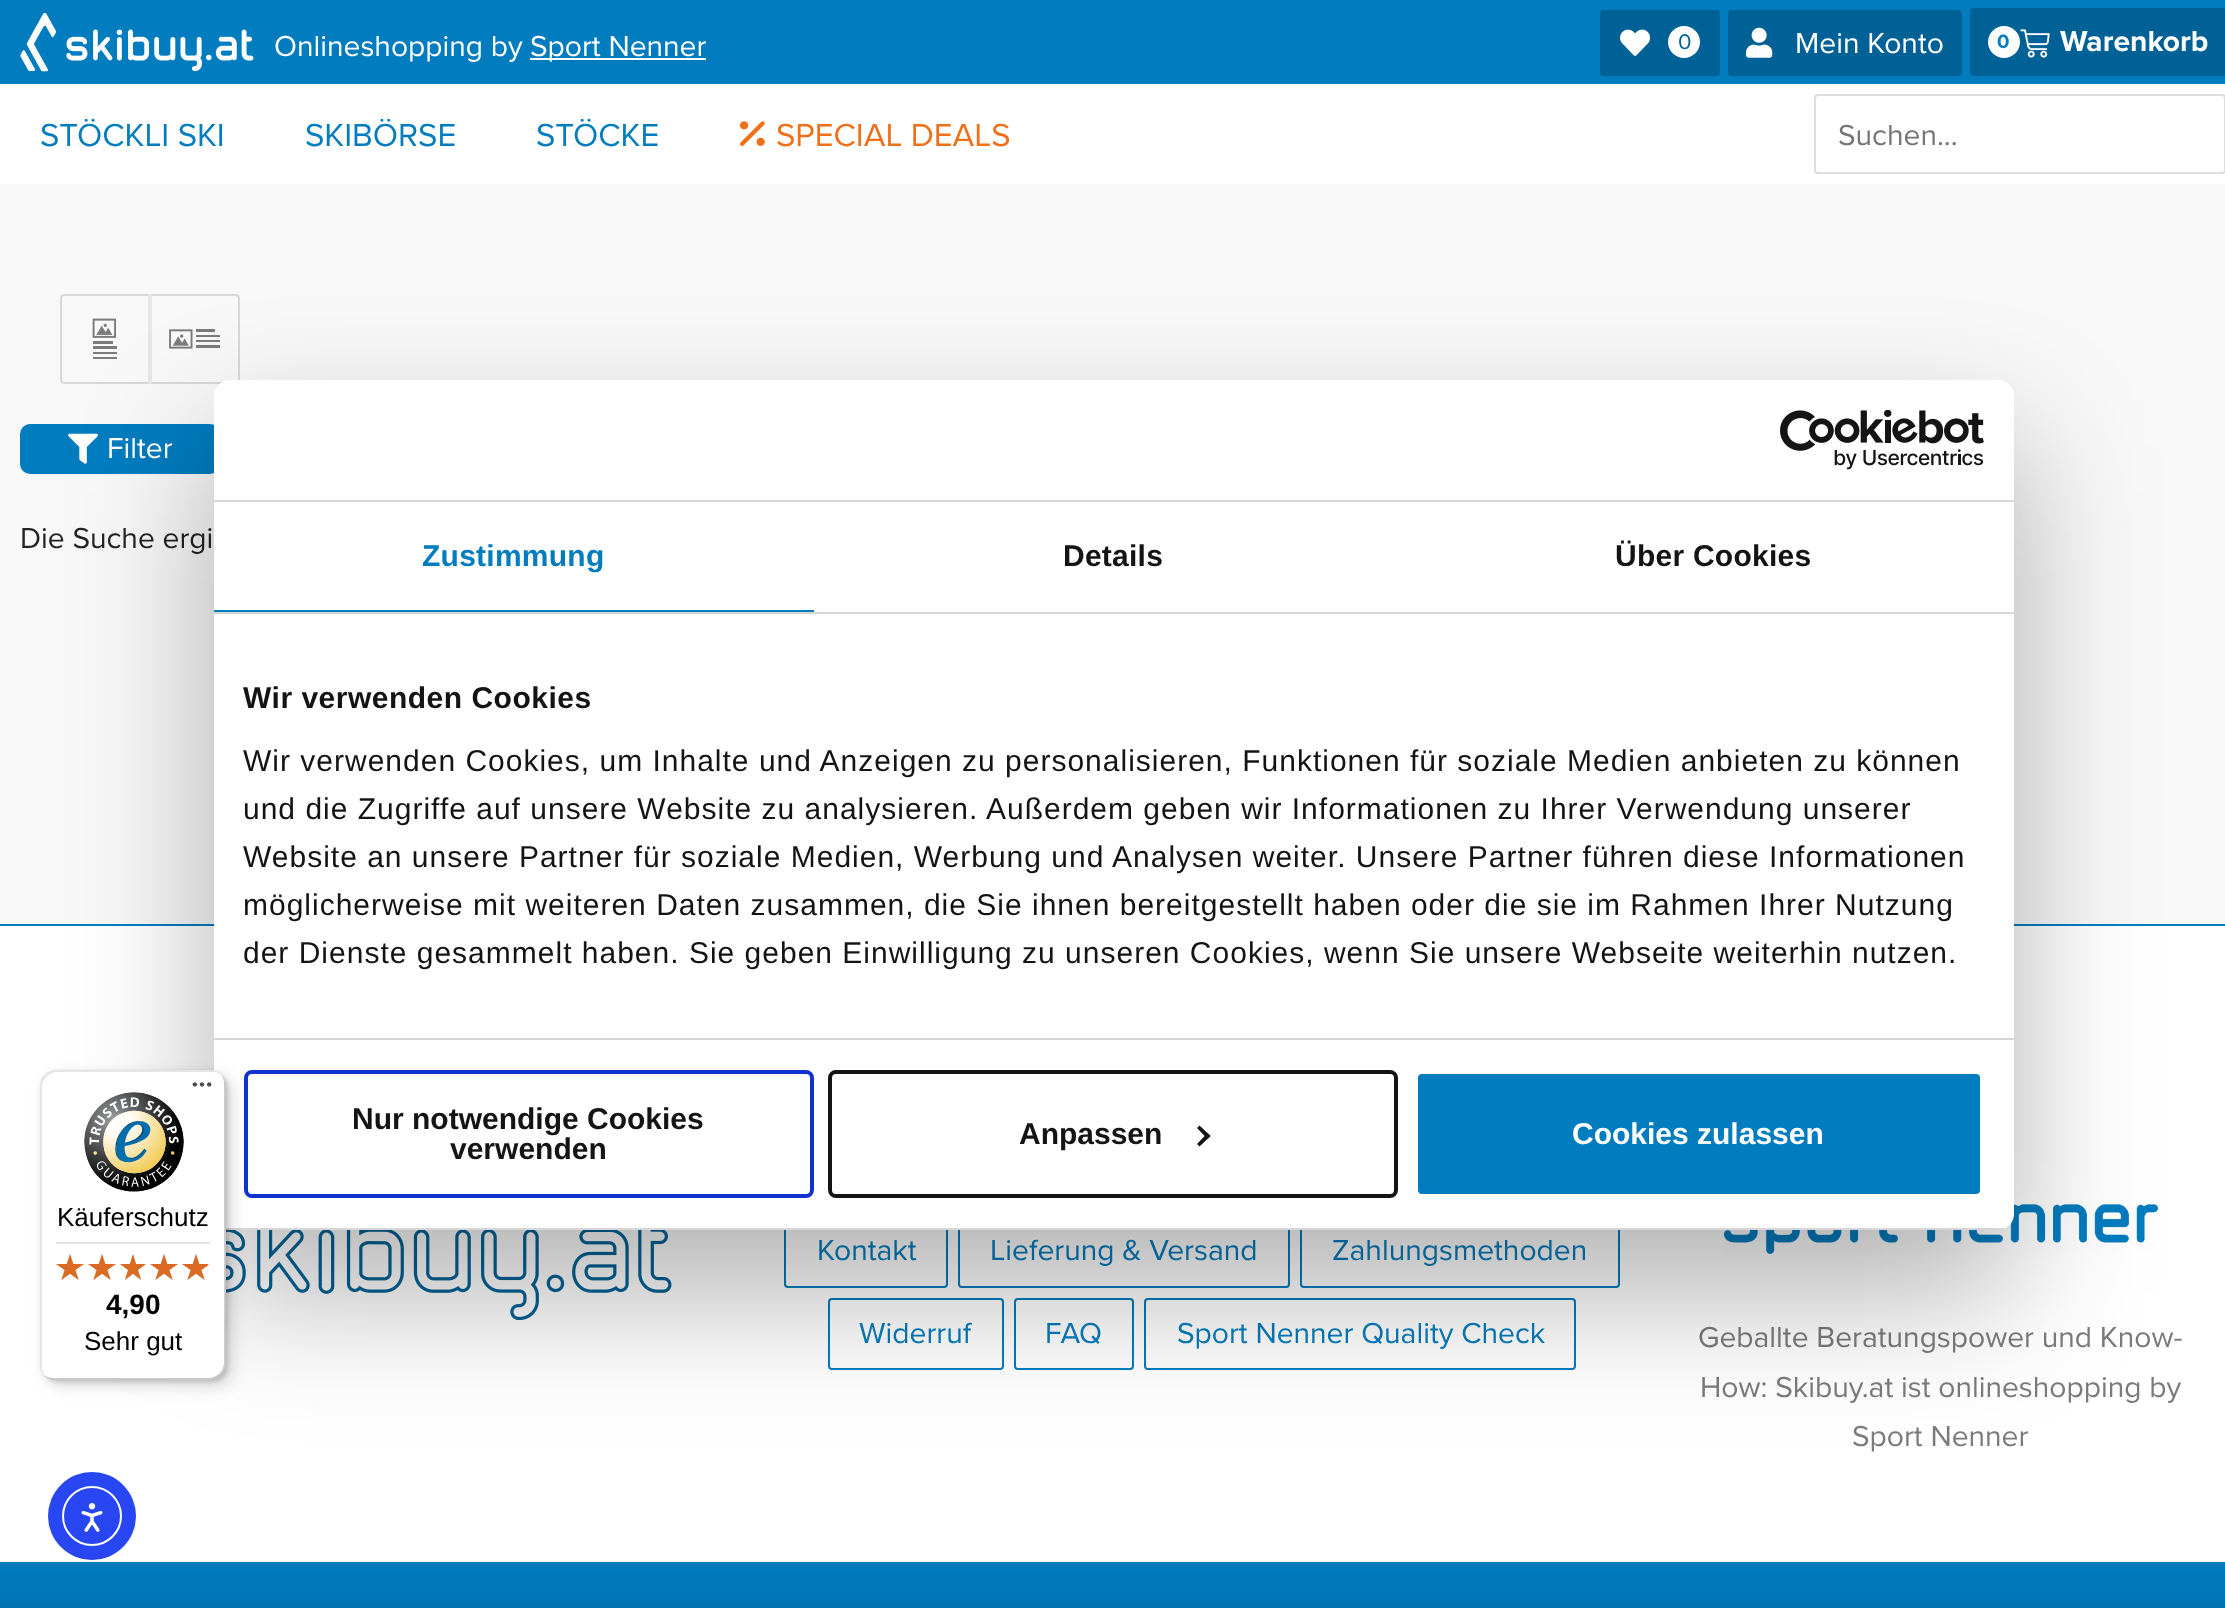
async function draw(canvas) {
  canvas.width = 2225;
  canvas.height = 1608;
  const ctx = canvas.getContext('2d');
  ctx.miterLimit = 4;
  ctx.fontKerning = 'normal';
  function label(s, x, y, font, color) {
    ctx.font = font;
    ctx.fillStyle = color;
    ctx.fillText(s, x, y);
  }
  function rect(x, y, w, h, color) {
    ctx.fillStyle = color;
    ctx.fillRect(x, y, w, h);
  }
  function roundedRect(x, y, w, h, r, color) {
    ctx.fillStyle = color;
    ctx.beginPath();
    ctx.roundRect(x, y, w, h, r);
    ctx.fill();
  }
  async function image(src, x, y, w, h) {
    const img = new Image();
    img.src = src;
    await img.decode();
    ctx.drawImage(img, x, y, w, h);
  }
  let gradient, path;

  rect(0, 0, 2225, 1608, '#f8f8f8');
  rect(0, 0, 2225, 84, '#007cbf');
  await image('assets/img1.png', 20, 12, 234, 60);
  label('Onlineshopping by', 274, 56, '30px Proxima Nova', '#fff');
  rect(530, 58, 176, 2, '#fff');
  label('Sport Nenner', 530, 56, '30px Proxima Nova', '#fff');
  roundedRect(1600, 10, 120, 66, 4, '#006196');
  await image('assets/img2.png', 1620, 29, 31, 27);
  ctx.fillStyle = '#fff';
  ctx.beginPath();
  ctx.arc(1684, 42, 16, 0, 2 * Math.PI);
  ctx.fill();
  label('0', 1678, 49, '22px Proxima Nova', '#006196');
  roundedRect(1728, 10, 234, 66, 4, '#006196');
  await image('assets/img3.png', 1746, 27, 27, 31);
  label('Mein Konto', 1795, 53, '30px Proxima Nova', '#fff');
  roundedRect(1970, 8, 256, 68, 4, '#006196');
  ctx.fillStyle = '#fff';
  ctx.beginPath();
  ctx.arc(2004, 42, 16, 0, 2 * Math.PI);
  ctx.fill();
  label('0', 1997, 48, 'bold 20px Proxima Nova', '#007cbf');
  await image('assets/img4.png', 2020, 29, 30, 29);
  label('Warenkorb', 2060, 51, 'bold 30px Proxima Nova', '#fff');
  rect(0, 84, 2225, 100, '#fff');
  label('STÖCKLI SKI', 40, 146, '33px Proxima Nova', '#007cbf');
  label('SKIBÖRSE', 305, 146, '33px Proxima Nova', '#007cbf');
  label('STÖCKE', 536, 146, '33px Proxima Nova', '#007cbf');
  await image('assets/img5.png', 740, 121, 25, 25);
  label('SPECIAL DEALS', 776, 146, '33px Proxima Nova', '#ef7018');
  ctx.beginPath();
  ctx.roundRect(1815, 95, 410, 78, 3);
  ctx.strokeStyle = '#ddd';
  ctx.lineWidth = 2;
  ctx.stroke();
  label('Suchen...', 1838, 145, '30px Proxima Nova', '#757575');
  ctx.fillStyle = '#d8d8d8';
  path = new Path2D('M64 294L61 295L63 297L64 296H148L150 294Z');
  ctx.fill(path);
  ctx.fillStyle = '#e7e7e7';
  path = new Path2D('M150 294L148 296V382L150 384Z');
  ctx.fill(path);
  ctx.fillStyle = '#d8d8d8';
  path = new Path2D('M150 384L148 382H64L63 381L61 383L64 384Z');
  ctx.fill(path);
  path = new Path2D('M60 298V380L61 383L63 381L62 380V298L63 297L61 295Z');
  ctx.fill(path);
  await image('assets/img6.png', 92, 318, 25, 41);
  path = new Path2D('M150 294L152 296H236L237 297L239 295L236 294Z');
  ctx.fill(path);
  path = new Path2D('M240 380V298L239 295L237 297L238 298V380L237 381L239 383Z');
  ctx.fill(path);
  path = new Path2D('M236 384L239 383L237 381L236 382H152L150 384Z');
  ctx.fill(path);
  ctx.fillStyle = '#e7e7e7';
  path = new Path2D('M150 294V384L152 382V296Z');
  ctx.fill(path);
  await image('assets/img7.png', 169, 329, 51, 20);
  roundedRect(20, 424, 200, 50, 10, '#007cbf');
  await image('assets/img8.png', 68, 433, 30, 31);
  label('Filter', 107, 458, '30px Proxima Nova', '#fff');
  label('Die Suche ergi', 20, 548, '30px Proxima Nova', '#232323');
  rect(0, 926, 2225, 636, '#fff');
  rect(0, 924, 2225, 2, '#007cbf');
  await image('assets/img9.png', 226, 1229, 446, 92);
  ctx.beginPath();
  ctx.roundRect(785, 1215, 162, 72, 3);
  ctx.strokeStyle = '#007cbf';
  ctx.stroke();
  label('Kontakt', 817, 1260, '30px Proxima Nova', '#007cbf');
  ctx.beginPath();
  ctx.roundRect(959, 1215, 330, 72, 3);
  ctx.stroke();
  label('Lieferung & Versand', 990, 1260, '30px Proxima Nova', '#007cbf');
  ctx.beginPath();
  ctx.roundRect(1301, 1215, 318, 72, 3);
  ctx.stroke();
  label('Zahlungsmethoden', 1332, 1260, '30px Proxima Nova', '#007cbf');
  ctx.beginPath();
  ctx.roundRect(829, 1299, 174, 70, 3);
  ctx.stroke();
  label('Widerruf', 859, 1343, '30px Proxima Nova', '#007cbf');
  ctx.beginPath();
  ctx.roundRect(1015, 1299, 118, 70, 3);
  ctx.stroke();
  label('FAQ', 1045, 1343, '30px Proxima Nova', '#007cbf');
  ctx.beginPath();
  ctx.roundRect(1145, 1299, 430, 70, 3);
  ctx.stroke();
  label('Sport Nenner Quality Check', 1177, 1343, '30px Proxima Nova', '#007cbf');
  await image('assets/img10.png', 1724, 1204, 434, 50);
  label('Geballte Beratungspower und Know-', 1698, 1347, '30px Proxima Nova', '#7b7b7b');
  label('How: Skibuy.at ist onlineshopping by', 1700, 1397, '30px Proxima Nova', '#7b7b7b');
  label('Sport Nenner', 1852, 1446, '30px Proxima Nova', '#7b7b7b');
  gradient = ctx.createLinearGradient(1113, 1562, 1113, 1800);
  gradient.addColorStop(0, '#007cbf');
  gradient.addColorStop(1, '#005380');
  ctx.fillStyle = gradient;
  ctx.fillRect(0, 1562, 2225, 46);
  ctx.fillStyle = '#0000004d';
  ctx.filter = 'blur(68px)';
  ctx.beginPath();
  ctx.roundRect(214, 444, 1800, 850, 16);
  ctx.fill();
  ctx.filter = 'none';
  roundedRect(214, 380, 1800, 850, 16, '#fff');
  rect(214, 500, 1800, 2, '#d6d6d6');
  await image('assets/img11.png', 1780, 410, 204, 60);
  rect(214, 612, 1800, 2, '#d6d6d6');
  rect(214, 610, 600, 2, '#007cbf');
  ctx.letterSpacing = '0.25px';
  label('Zustimmung', 422, 566, 'bold 30px Liberation Sans', '#007cbf');
  label('Details', 1063, 566, 'bold 30px Liberation Sans', '#141414');
  label('Über Cookies', 1615, 566, 'bold 30px Liberation Sans', '#141414');
  rect(214, 1038, 1800, 2, '#d6d6d6');
  ctx.letterSpacing = '0.5px';
  label('Wir verwenden Cookies', 243, 708, 'bold 30px Liberation Sans', '#141414');
  ctx.letterSpacing = '1px';
  label('Wir verwenden Cookies, um Inhalte und Anzeigen zu personalisieren, Funktionen für soziale Medien anbieten zu können', 243, 771, '30px Liberation Sans', '#141414');
  label('und die Zugriffe auf unsere Website zu analysieren. Außerdem geben wir Informationen zu Ihrer Verwendung unserer', 243, 819, '30px Liberation Sans', '#141414');
  label('Website an unsere Partner für soziale Medien, Werbung und Analysen weiter. Unsere Partner führen diese Informationen', 243, 867, '30px Liberation Sans', '#141414');
  label('möglicherweise mit weiteren Daten zusammen, die Sie ihnen bereitgestellt haben oder die sie im Rahmen Ihrer Nutzung', 243, 915, '30px Liberation Sans', '#141414');
  label('der Dienste gesammelt haben. Sie geben Einwilligung zu unseren Cookies, wenn Sie unsere Webseite weiterhin nutzen.', 243, 963, '30px Liberation Sans', '#141414');
  ctx.save();
  ctx.beginPath();
  ctx.roundRect(214, 380, 1800, 850, 16);
  ctx.clip();
  rect(226, 1228, 1788, 2, '#d6d6d6');
  ctx.restore();
  ctx.beginPath();
  ctx.roundRect(246, 1072, 566, 124, 6);
  ctx.strokeStyle = '#1032cf';
  ctx.lineWidth = 4;
  ctx.stroke();
  ctx.letterSpacing = '0px';
  label('Nur notwendige Cookies', 352, 1129, 'bold 30px Liberation Sans', '#141414');
  label('verwenden', 450, 1159, 'bold 30px Liberation Sans', '#141414');
  ctx.beginPath();
  ctx.roundRect(830, 1072, 566, 124, 6);
  ctx.strokeStyle = '#141414';
  ctx.stroke();
  label('Anpassen', 1019, 1144, 'bold 30px Liberation Sans', '#141414');
  path = new Path2D('M1199.5 1125.5L1210.5 1136L1207.5 1139L1197 1128Z');
  ctx.fill(path);
  path = new Path2D('M1207.5 1133L1210.5 1136L1199.5 1146.5L1197 1144Z');
  ctx.fill(path);
  ctx.fillStyle = '#007cbf';
  ctx.beginPath();
  ctx.roundRect(1416, 1072, 566, 124, 6);
  ctx.fill();
  ctx.strokeStyle = '#fff';
  ctx.stroke();
  label('Cookies zulassen', 1572, 1144, 'bold 30px Liberation Sans', '#fff');
  ctx.fillStyle = '#00000026';
  ctx.filter = 'blur(8px)';
  ctx.beginPath();
  ctx.roundRect(46, 1076, 186, 310, 16);
  ctx.fill();
  ctx.filter = 'none';
  ctx.filter = 'blur(2px)';
  ctx.beginPath();
  ctx.roundRect(42, 1072, 186, 310, 16);
  ctx.fill();
  ctx.filter = 'none';
  roundedRect(40, 1070, 186, 310, 16, '#fff');
  ctx.fillStyle = '#0000001a';
  path = new Path2D('M58 1072H212C216 1072 219 1073 222 1075C219 1072 215 1070 210 1070H56C47 1070 40 1077 40 1086V1364C40 1369 42 1373 45 1376C43 1373 42 1370 42 1366V1088C42 1079 49 1072 58 1072Z');
  ctx.fill(path);
  ctx.fillStyle = '#00000033';
  path = new Path2D('M44 1375C47 1378 51 1380 56 1380H210C219 1380 226 1373 226 1364V1086C226 1081 224 1077 221 1074C223 1077 224 1080 224 1084V1362C224 1371 217 1378 208 1378H54C50 1378 47 1377 44 1375Z');
  ctx.fill(path);
  ctx.fillStyle = '#32323233';
  path = new Path2D('M45 1375C48 1378 52 1380 56 1380H210C219 1380 226 1373 226 1364V1086C226 1082 224 1078 221 1075C224 1078 225 1081 225 1085V1363C225 1372 218 1379 209 1379H55C51 1379 48 1378 45 1375Z');
  ctx.fill(path);
  ctx.fillStyle = '#ffffff4d';
  path = new Path2D('M45 1375C48 1378 52 1380 56 1380H210C219 1380 226 1373 226 1364V1086C226 1082 224 1078 221 1075C224 1078 225 1081 225 1085V1363C225 1372 218 1379 209 1379H55C51 1379 48 1378 45 1375Z');
  ctx.fill(path);
  await image('assets/img12.png', 192, 1082, 20, 5);
  await image('assets/img13.png', 84, 1092, 100, 100);
  label('Käuferschutz', 57, 1226, '26px Liberation Sans', '#000');
  rect(56, 1242, 154, 2, '#e5e5e5');
  await image('assets/img14.png', 56, 1254, 28, 26);
  await image('assets/img14.png', 88, 1254, 28, 26);
  await image('assets/img15.png', 120, 1254, 26, 26);
  await image('assets/img14.png', 150, 1254, 28, 26);
  await image('assets/img14.png', 182, 1254, 28, 26);
  await image('assets/img16.png', 56, 1254, 28, 26);
  await image('assets/img16.png', 88, 1254, 28, 26);
  await image('assets/img17.png', 120, 1254, 26, 26);
  await image('assets/img16.png', 150, 1254, 28, 26);
  await image('assets/img18.png', 182, 1254, 26, 26);
  label('4,90', 106, 1314, 'bold 28px Liberation Sans', '#000');
  label('Sehr gut', 84, 1350, '26px Liberation Sans', '#000');
  ctx.fillStyle = '#2847f3';
  ctx.beginPath();
  ctx.arc(92, 1516, 44, 0, 2 * Math.PI);
  ctx.fill();
  ctx.beginPath();
  ctx.arc(92, 1516, 29, 0, 2 * Math.PI);
  ctx.lineWidth = 2;
  ctx.stroke();
  await image('assets/img19.png', 81, 1503, 22, 29);
}

draw(document.querySelector('canvas'));
